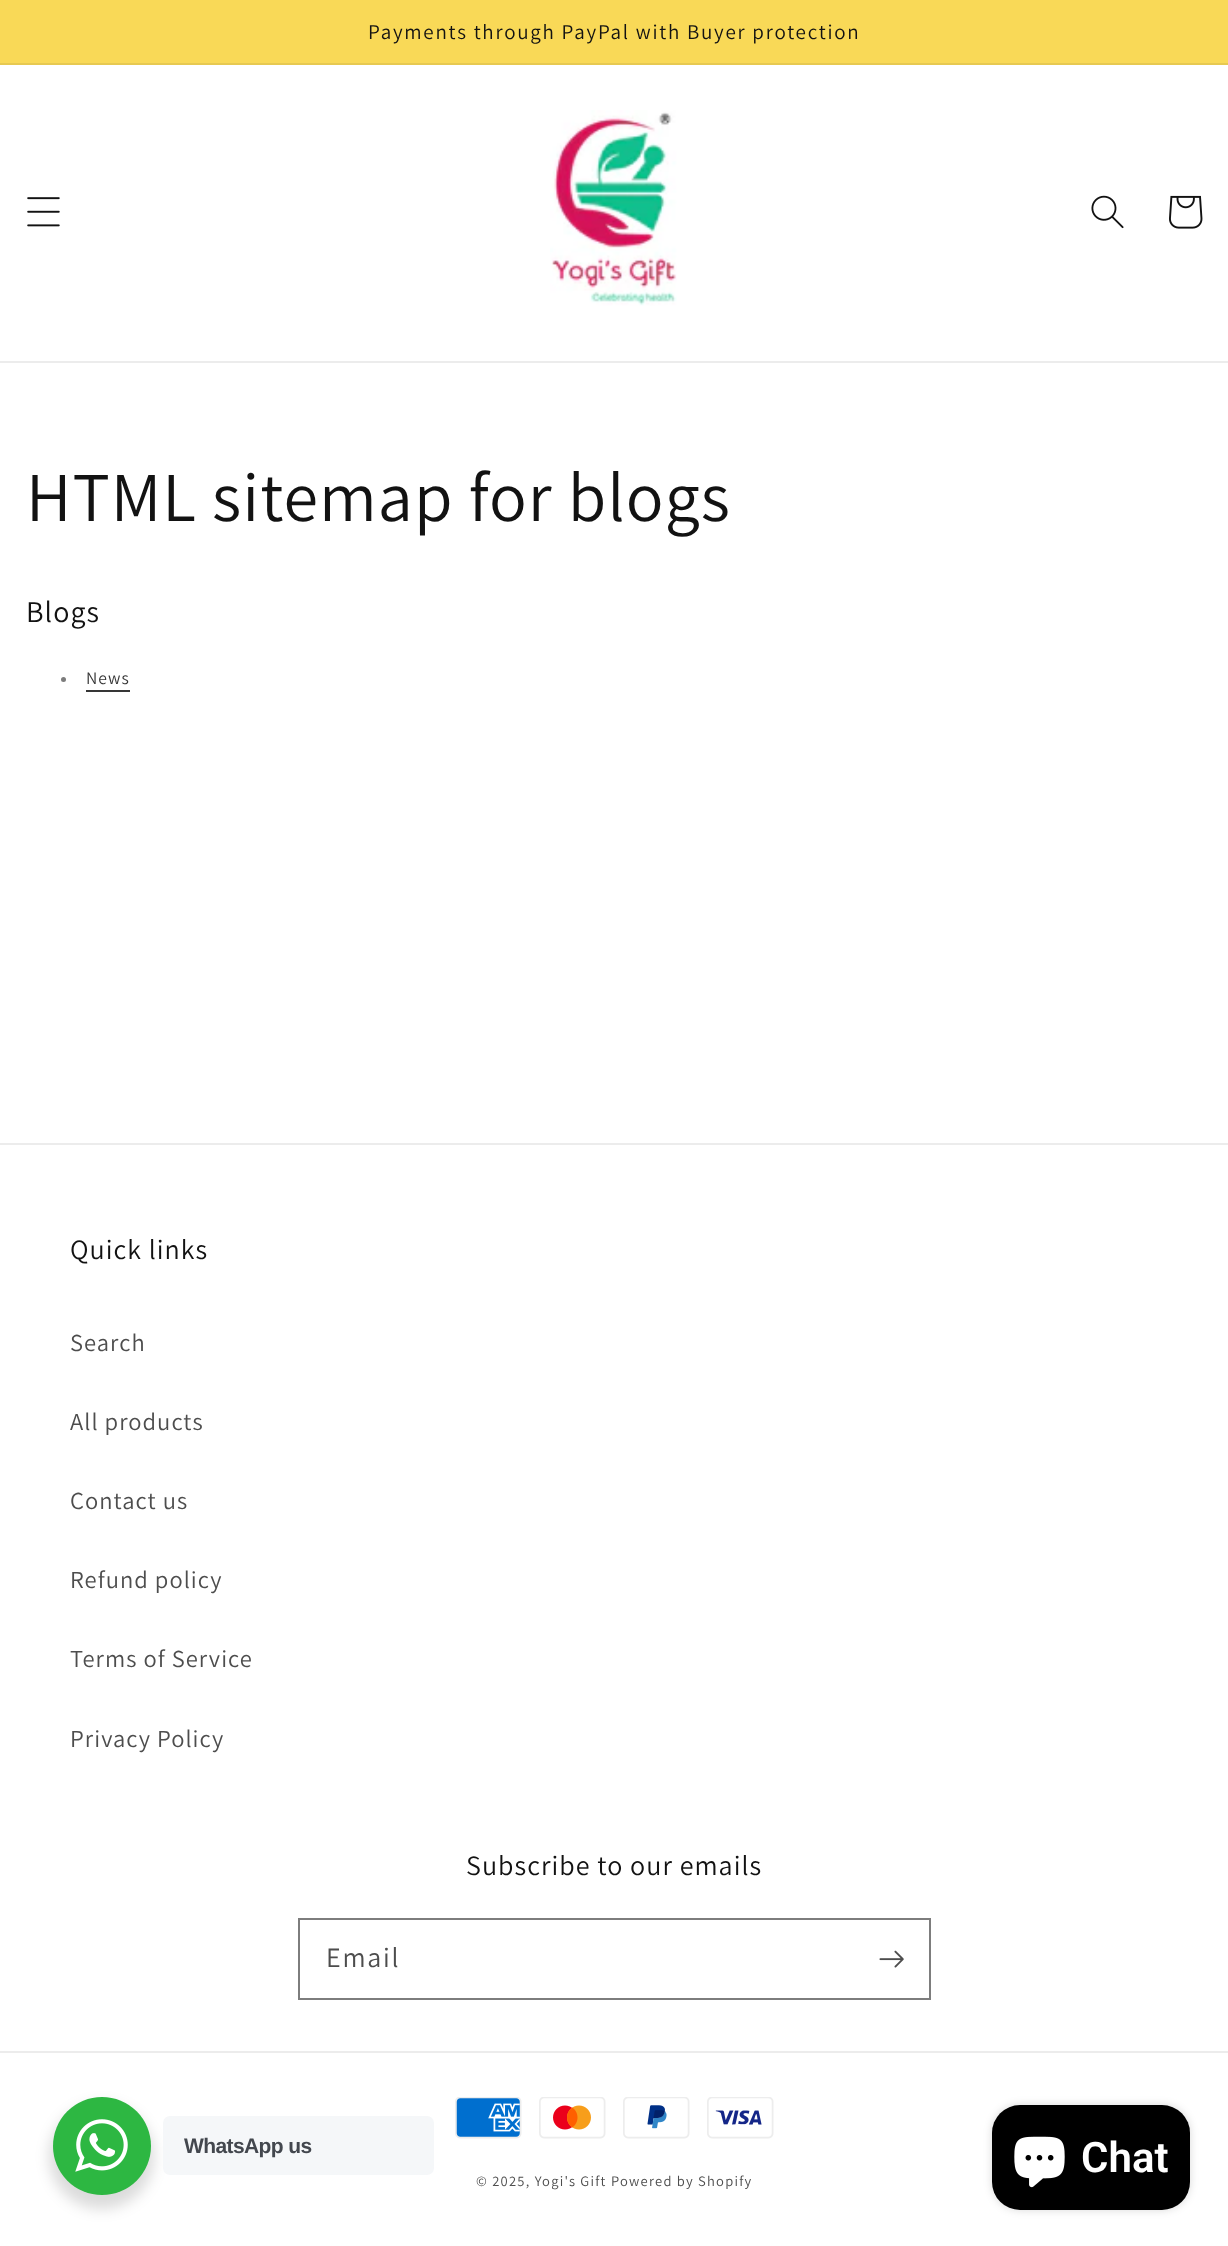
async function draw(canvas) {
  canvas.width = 1228;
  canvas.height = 2246;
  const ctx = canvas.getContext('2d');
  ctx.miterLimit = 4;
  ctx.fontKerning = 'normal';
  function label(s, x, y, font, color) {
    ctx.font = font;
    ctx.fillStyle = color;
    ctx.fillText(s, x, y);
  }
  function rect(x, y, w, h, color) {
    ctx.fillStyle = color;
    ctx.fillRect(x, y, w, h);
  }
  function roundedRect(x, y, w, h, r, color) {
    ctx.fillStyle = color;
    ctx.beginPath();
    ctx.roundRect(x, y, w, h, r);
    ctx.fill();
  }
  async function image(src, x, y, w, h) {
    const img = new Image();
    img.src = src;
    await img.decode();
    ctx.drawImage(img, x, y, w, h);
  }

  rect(0, 0, 1228, 2246, '#fff');
  rect(0, 0, 1228, 63, '#f9d957');
  rect(0, 63, 1228, 2, '#e7c951');
  ctx.letterSpacing = '1.75px';
  label('Payments through PayPal with Buyer protection', 368, 39, '21px Assistant', '#121212');
  rect(0, 361, 1228, 2, '#ececec');
  await image('assets/img1.png', 27, 197, 33, 30);
  await image('assets/img2.png', 550, 110, 127, 196);
  await image('assets/img3.png', 1091, 195, 33, 34);
  await image('assets/img4.png', 1169, 195, 34, 34);
  ctx.letterSpacing = '1.05px';
  label('HTML sitemap for blogs', 26, 521, '70px Assistant', '#121212');
  label('Blogs', 26, 622, '30px Assistant', '#121212');
  ctx.fillStyle = '#7c7c7c';
  ctx.beginPath();
  ctx.arc(63.5, 679.5, 2.5, 0, 2 * Math.PI);
  ctx.fill();
  label('News', 86, 684, '17.5px Assistant', '#363636');
  rect(86, 690, 44, 2, '#363636');
  rect(0, 1143, 1228, 2, '#ececec');
  label('Quick links', 70, 1259, '28px Assistant', '#121212');
  label('Search', 70, 1351, '24.5px Assistant', '#4d4d4d');
  label('All products', 70, 1430, '24.5px Assistant', '#4d4d4d');
  label('Contact us', 70, 1509, '24.5px Assistant', '#4d4d4d');
  label('Refund policy', 70, 1588, '24.5px Assistant', '#4d4d4d');
  label('Terms of Service', 70, 1667, '24.5px Assistant', '#4d4d4d');
  label('Privacy Policy', 70, 1747, '24.5px Assistant', '#4d4d4d');
  label('Subscribe to our emails', 466, 1875, '28px Assistant', '#121212');
  ctx.strokeStyle = '#7d7d7d';
  ctx.lineWidth = 2;
  ctx.strokeRect(299, 1919, 631, 80);
  ctx.letterSpacing = '1.75px';
  label('Email', 326, 1967, '28px Assistant', '#4d4d4d');
  await image('assets/img5.png', 879, 1950, 25, 18);
  rect(0, 2051, 1228, 2, '#ececec');
  await image('assets/img6.png', 455, 2097, 67, 42);
  await image('assets/img7.png', 539, 2097, 67, 42);
  await image('assets/img8.png', 623, 2097, 67, 42);
  await image('assets/img9.png', 707, 2097, 67, 42);
  ctx.letterSpacing = '1.25px';
  label('© 2025, Yogi\'s Gift', 476, 2186, '14.5px Assistant', '#4d4d4d');
  label('Powered by Shopify', 611, 2186, '14.5px Assistant', '#4d4d4d');
  ctx.fillStyle = '#00000024';
  ctx.filter = 'blur(7px)';
  ctx.beginPath();
  ctx.roundRect(49, 2104, 105, 105, 52.5);
  ctx.fill();
  ctx.filter = 'none';
  ctx.fillStyle = '#2db742';
  ctx.beginPath();
  ctx.arc(102, 2146, 49, 0, 2 * Math.PI);
  ctx.fill();
  await image('assets/img10.png', 75, 2119, 53, 53);
  roundedRect(163, 2116, 271, 59, 7, '#f5f7f9');
  ctx.letterSpacing = '-0.6px';
  label('WhatsApp us', 184, 2153, 'bold 21px Liberation Sans', '#43474e');
  ctx.fillStyle = '#00000026';
  ctx.filter = 'blur(4.5px)';
  ctx.beginPath();
  ctx.roundRect(992, 2105, 198, 105, 28);
  ctx.fill();
  ctx.filter = 'none';
  roundedRect(992, 2105, 198, 105, 28, '#000');
  await image('assets/img11.png', 1014, 2136, 51, 52);
  ctx.letterSpacing = '0px';
  label('Chat', 1081, 2172, '600 42px Roboto', '#fff');
}

draw(document.querySelector('canvas'));
